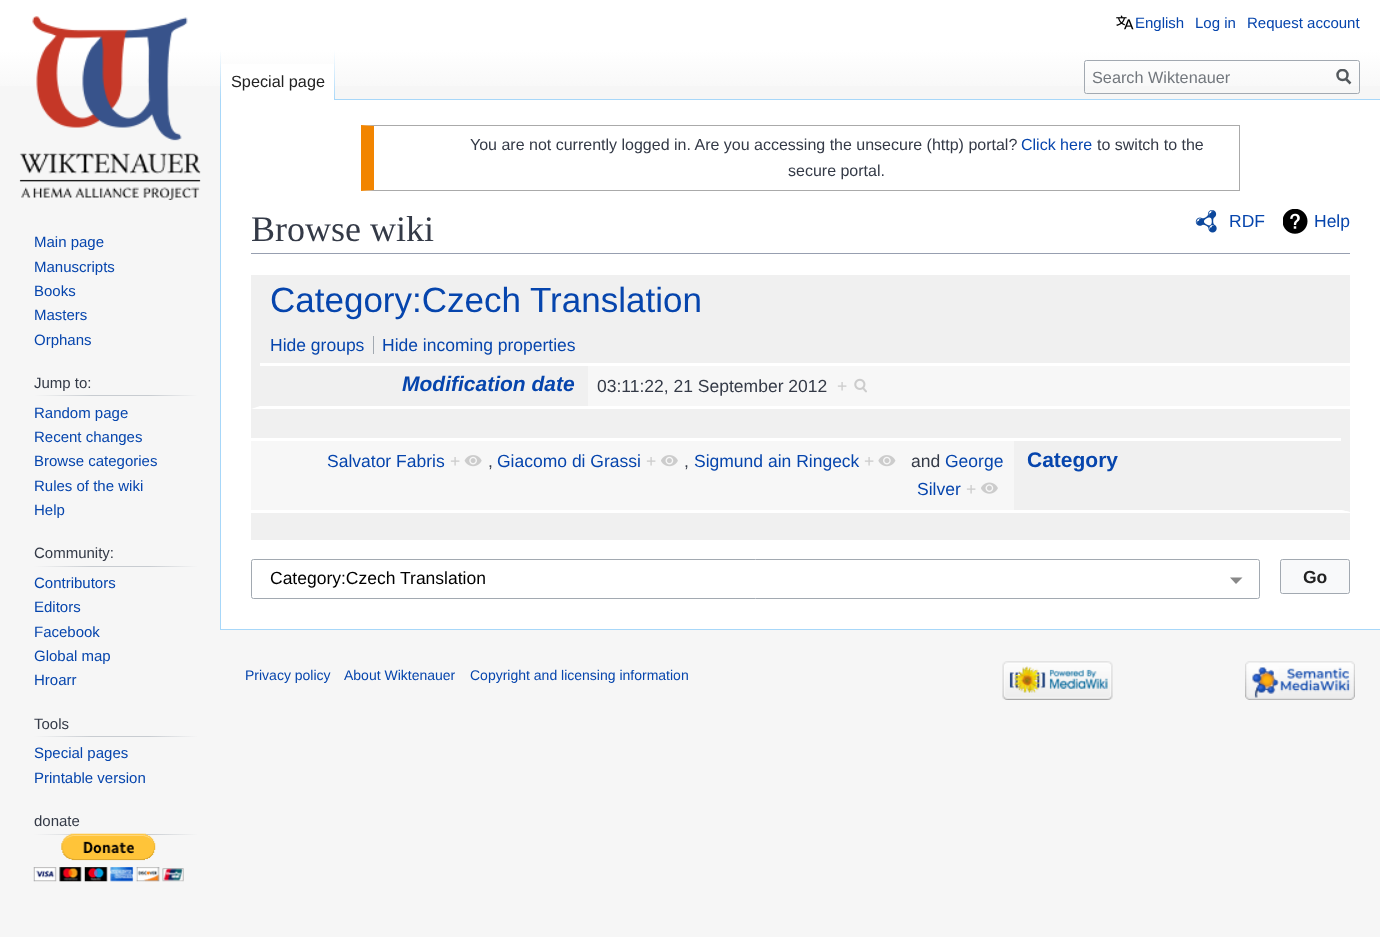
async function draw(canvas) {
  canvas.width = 1380;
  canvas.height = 937;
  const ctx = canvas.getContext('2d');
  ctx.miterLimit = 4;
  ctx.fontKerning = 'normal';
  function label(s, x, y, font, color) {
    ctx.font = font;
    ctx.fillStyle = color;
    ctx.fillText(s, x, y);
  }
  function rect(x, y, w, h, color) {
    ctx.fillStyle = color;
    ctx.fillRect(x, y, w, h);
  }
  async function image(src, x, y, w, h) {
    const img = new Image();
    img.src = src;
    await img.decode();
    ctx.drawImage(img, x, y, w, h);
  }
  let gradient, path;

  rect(0, 0, 1380, 937, '#f6f6f6');
  gradient = ctx.createLinearGradient(690, 0, 690, 100);
  gradient.addColorStop(0.5, '#fff');
  gradient.addColorStop(1, '#f6f6f6');
  ctx.fillStyle = gradient;
  ctx.fillRect(0, 0, 1380, 86);
  await image('assets/img1.png', 1116, 15, 18, 15);
  label('English', 1135, 28, '15px Liberation Sans', '#0645ad');
  label('Log in', 1195, 28, '15px Liberation Sans', '#0645ad');
  label('Request account', 1247, 28, '15px Liberation Sans', '#0645ad');
  rect(220, 629, 1160, 1, '#a7d7f9');
  rect(220, 99, 1, 531, '#a7d7f9');
  gradient = ctx.createLinearGradient(221, 50, 221, 100);
  gradient.addColorStop(0, '#a7d7f900');
  gradient.addColorStop(1, '#a7d7f9');
  ctx.fillStyle = gradient;
  ctx.fillRect(220, 50, 1, 50);
  rect(221, 64, 113, 36, '#fff');
  gradient = ctx.createLinearGradient(334, 50, 334, 100);
  gradient.addColorStop(0, '#fff');
  gradient.addColorStop(1, '#a7d7f9');
  ctx.fillStyle = gradient;
  ctx.fillRect(334, 50, 1, 50);
  label('Special page', 231, 87, '16.25px Liberation Sans', '#222');
  ctx.beginPath();
  ctx.roundRect(1084.5, 60.5, 275, 33, 2);
  ctx.strokeStyle = '#a2a9b1';
  ctx.stroke();
  label('Search Wiktenauer', 1092, 83, '16.25px Liberation Sans', '#72777d');
  path = new Path2D('M1350.5 83.5L1345.5 78.5');
  ctx.strokeStyle = '#54595d';
  ctx.lineWidth = 2.5;
  ctx.stroke(path);
  ctx.save();
  ctx.beginPath();
  ctx.rect(1336, 69, 15, 16);
  ctx.clip();
  ctx.beginPath();
  ctx.arc(1342.5, 75, 5, 0, 2 * Math.PI);
  ctx.stroke();
  ctx.restore();
  await image('assets/img2.png', 19, 16, 182, 184);
  label('Main page', 34, 247, '15px Liberation Sans', '#0645ad');
  label('Manuscripts', 34, 272, '15px Liberation Sans', '#0645ad');
  label('Books', 34, 296, '15px Liberation Sans', '#0645ad');
  label('Masters', 34, 320, '15px Liberation Sans', '#0645ad');
  label('Orphans', 34, 345, '15px Liberation Sans', '#0645ad');
  label('Jump to:', 34, 388, '15px Liberation Sans', '#343a47');
  gradient = ctx.createLinearGradient(34, 396, 198, 396);
  gradient.addColorStop(0, '#f6f6f6');
  gradient.addColorStop(0.35, '#c8ccd1');
  gradient.addColorStop(0.7, '#c8ccd1');
  gradient.addColorStop(1, '#f6f6f6');
  ctx.fillStyle = gradient;
  ctx.fillRect(34, 395, 164, 1);
  label('Random page', 34, 418, '15px Liberation Sans', '#0645ad');
  label('Recent changes', 34, 442, '15px Liberation Sans', '#0645ad');
  label('Browse categories', 34, 466, '15px Liberation Sans', '#0645ad');
  label('Rules of the wiki', 34, 491, '15px Liberation Sans', '#0645ad');
  label('Help', 34, 515, '15px Liberation Sans', '#0645ad');
  label('Community:', 34, 558, '15px Liberation Sans', '#343a47');
  gradient = ctx.createLinearGradient(34, 567, 198, 567);
  gradient.addColorStop(0, '#f6f6f6');
  gradient.addColorStop(0.35, '#c8ccd1');
  gradient.addColorStop(0.7, '#c8ccd1');
  gradient.addColorStop(1, '#f6f6f6');
  ctx.fillStyle = gradient;
  ctx.fillRect(34, 566, 164, 1);
  label('Contributors', 34, 588, '15px Liberation Sans', '#0645ad');
  label('Editors', 34, 612, '15px Liberation Sans', '#0645ad');
  label('Facebook', 34, 637, '15px Liberation Sans', '#0645ad');
  label('Global map', 34, 661, '15px Liberation Sans', '#0645ad');
  label('Hroarr', 34, 685, '15px Liberation Sans', '#0645ad');
  label('Tools', 34, 729, '15px Liberation Sans', '#343a47');
  gradient = ctx.createLinearGradient(34, 737, 198, 737);
  gradient.addColorStop(0, '#f6f6f6');
  gradient.addColorStop(0.35, '#c8ccd1');
  gradient.addColorStop(0.7, '#c8ccd1');
  gradient.addColorStop(1, '#f6f6f6');
  ctx.fillStyle = gradient;
  ctx.fillRect(34, 736, 164, 1);
  label('Special pages', 34, 758, '15px Liberation Sans', '#0645ad');
  label('Printable version', 34, 783, '15px Liberation Sans', '#0645ad');
  label('donate', 34, 826, '15px Liberation Sans', '#343a47');
  gradient = ctx.createLinearGradient(34, 834, 198, 834);
  gradient.addColorStop(0, '#f6f6f6');
  gradient.addColorStop(0.35, '#c8ccd1');
  gradient.addColorStop(0.7, '#c8ccd1');
  gradient.addColorStop(1, '#f6f6f6');
  ctx.fillStyle = gradient;
  ctx.fillRect(34, 834, 164, 1);
  await image('assets/img3.png', 33, 833, 151, 49);
  rect(221, 100, 1159, 529, '#fff');
  rect(335, 99, 1045, 1, '#a7d7f9');
  ctx.fillStyle = '#aaa';
  path = new Path2D('M361 125H1240L1239 126H374Z');
  ctx.fill(path);
  rect(1239, 125, 1, 66, '#aaa');
  path = new Path2D('M1240 191H361L374 190H1239Z');
  ctx.fill(path);
  ctx.fillStyle = '#f28500';
  path = new Path2D('M361 191V125L374 126V190Z');
  ctx.fill(path);
  label('You are not currently logged in. Are you accessing the unsecure (http) portal?', 470, 150, '16px Liberation Sans', '#343a47');
  label('Click here', 1021, 150, '16px Liberation Sans', '#0645ad');
  label('to switch to the', 1097, 150, '16px Liberation Sans', '#343a47');
  label('secure portal.', 788, 176, '16px Liberation Sans', '#343a47');
  rect(251, 253, 1099, 1, '#979fb0');
  label('Browse wiki', 251, 241, '36px Liberation Serif', '#343a47');
  await image('assets/img4.png', 1195, 210, 22, 23);
  label('RDF', 1229, 227, '17.5px Liberation Sans', '#0645ad');
  await image('assets/img5.png', 1283, 209, 25, 25);
  label('Help', 1314, 227, '17.5px Liberation Sans', '#0645ad');
  rect(251, 275, 1099, 53, '#f0f0f0');
  label('Category:Czech Translation', 270, 312, '35px Liberation Sans', '#0645ad');
  rect(251, 328, 9, 34, '#f0f0f0');
  rect(260, 328, 1090, 35, '#f0f0f0');
  label('Hide groups', 270, 351, '17.5px Liberation Sans', '#0645ad');
  rect(373, 336, 1, 18, '#a2a9b1');
  label('Hide incoming properties', 382, 351, '17.5px Liberation Sans', '#0645ad');
  ctx.fillStyle = '#f0f0f0';
  path = new Path2D('M251 409V362H260V406Z');
  ctx.fill(path);
  rect(260, 366, 328, 40, '#f0f0f0');
  label('Modification date', 402, 391, 'italic bold 21px Liberation Sans', '#0645ad');
  rect(588, 366, 762, 40, '#f7f7f7');
  label('03:11:22, 21 September 2012', 597, 392, '17.5px Liberation Sans', '#343a47');
  label('+', 837, 392, '17.5px Liberation Sans', '#ccc');
  await image('assets/img6.png', 854, 378, 13, 15);
  rect(251, 409, 1099, 29, '#f0f0f0');
  path = new Path2D('M1350 438V512L1341 510V438Z');
  ctx.fill(path);
  ctx.fillStyle = '#fff';
  path = new Path2D('M1350 512H251V510H1341Z');
  ctx.fill(path);
  rect(251, 441, 763, 69, '#f7f7f7');
  label('Salvator Fabris', 327, 467, '17.5px Liberation Sans', '#0645ad');
  label('+', 450, 467, '17.5px Liberation Sans', '#ccc');
  await image('assets/img7.png', 464, 455, 18, 12);
  label('Giacomo di Grassi', 497, 467, '17.5px Liberation Sans', '#0645ad');
  label('+', 646, 467, '17.5px Liberation Sans', '#ccc');
  await image('assets/img8.png', 661, 455, 17, 12);
  label('Sigmund ain Ringeck', 694, 467, '17.5px Liberation Sans', '#0645ad');
  label('+', 864, 467, '17.5px Liberation Sans', '#ccc');
  await image('assets/img9.png', 878, 455, 18, 12);
  label('and', 911, 467, '17.5px Liberation Sans', '#343a47');
  label('George', 945, 467, '17.5px Liberation Sans', '#0645ad');
  label(',', 488, 467, '17.5px Liberation Sans', '#343a47');
  label(',', 684, 467, '17.5px Liberation Sans', '#343a47');
  label('Silver', 917, 495, '17.5px Liberation Sans', '#0645ad');
  label('+', 966, 495, '17.5px Liberation Sans', '#ccc');
  await image('assets/img10.png', 981, 482, 17, 12);
  rect(1014, 441, 327, 69, '#f0f0f0');
  label('Category', 1027, 467, 'bold 21px Liberation Sans', '#0645ad');
  rect(251, 513, 1099, 27, '#f0f0f0');
  ctx.fillStyle = '#888';
  path = new Path2D('M1230 577.5L1236 584L1242.5 577.5Z');
  ctx.fill(path);
  ctx.beginPath();
  ctx.roundRect(251.5, 559.5, 1008, 39, 2);
  ctx.strokeStyle = '#a2a9b1';
  ctx.lineWidth = 1;
  ctx.stroke();
  label('Category:Czech Translation', 270, 584, '17.5px Liberation Sans', '#000');
  ctx.fillStyle = '#f8f9fa';
  ctx.beginPath();
  ctx.roundRect(1280.5, 559.5, 69, 34, 2);
  ctx.fill();
  ctx.stroke();
  label('Go', 1303, 583, 'bold 17.5px Liberation Sans', '#222');
  label('Privacy policy', 245, 680, '14px Liberation Sans', '#0645ad');
  label('About Wiktenauer', 344, 680, '14px Liberation Sans', '#0645ad');
  label('Copyright and licensing information', 470, 680, '14px Liberation Sans', '#0645ad');
  await image('assets/img11.png', 1002, 661, 111, 39);
  await image('assets/img12.png', 1245, 661, 110, 39);
}

draw(document.querySelector('canvas'));
